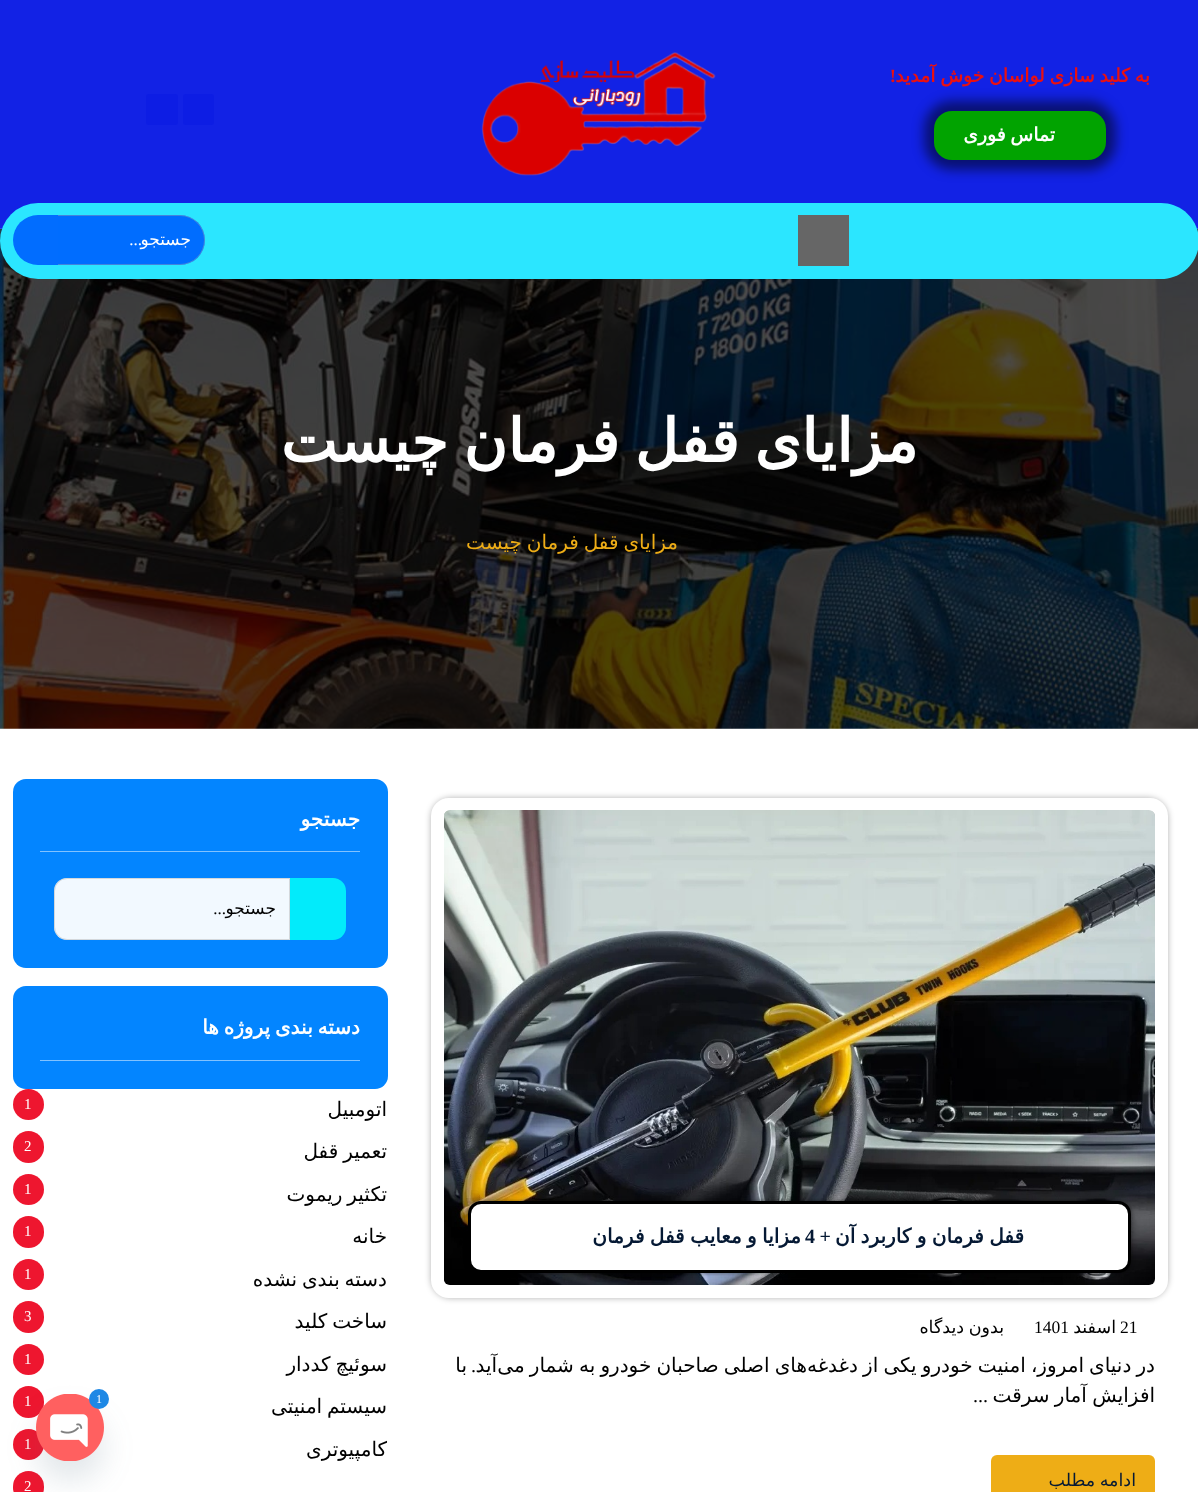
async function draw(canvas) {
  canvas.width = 1198;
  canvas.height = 1492;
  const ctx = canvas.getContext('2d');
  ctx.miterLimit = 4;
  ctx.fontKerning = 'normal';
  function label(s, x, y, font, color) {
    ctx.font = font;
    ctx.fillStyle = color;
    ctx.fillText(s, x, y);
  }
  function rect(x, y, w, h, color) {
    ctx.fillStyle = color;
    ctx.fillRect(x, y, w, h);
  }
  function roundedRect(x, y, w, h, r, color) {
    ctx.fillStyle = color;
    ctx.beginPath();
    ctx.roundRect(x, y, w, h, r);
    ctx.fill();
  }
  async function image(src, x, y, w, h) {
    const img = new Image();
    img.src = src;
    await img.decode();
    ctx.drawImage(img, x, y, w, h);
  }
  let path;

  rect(0, 0, 1198, 1492, '#fff');
  rect(0, 0, 1198, 229, '#1222e5');
  ctx.wordSpacing = '-1.25px';
  ctx.direction = 'rtl';
  label('به کلید سازی لواسان خوش آمدید', 1150, 82, 'bold 18.75px DejaVu Sans', '#ea1010');
  ctx.wordSpacing = '0px';
  label('!', 896, 82, 'bold 18.75px Liberation Serif', '#ea1010');
  ctx.fillStyle = '#00000080';
  ctx.filter = 'blur(6px)';
  ctx.beginPath();
  ctx.roundRect(924, 101, 192, 69, 28);
  ctx.fill();
  ctx.filter = 'none';
  roundedRect(934, 111, 172, 49, 18, '#01a300');
  ctx.wordSpacing = '-1.25px';
  label('تماس فوری', 1055, 141, 'bold 18.75px DejaVu Sans', '#fff');
  await image('assets/img1.png', 481, 52, 235, 124);
  roundedRect(183, 94, 31, 31, 3, '#0d1de4');
  roundedRect(146, 94, 32, 31, 3, '#0d1de4');
  await image('assets/img2.png', 0, 228, 1198, 501);
  ctx.fillStyle = '#2be6ff';
  path = new Path2D('M448 203H1161C1182 203 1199 220 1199 241C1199 262 1182 279 1161 279H448Z');
  ctx.fill(path);
  rect(798, 215, 51, 51, '#666');
  ctx.fillStyle = '#2be6ff';
  ctx.beginPath();
  ctx.roundRect(0, 203, 448, 76, [38, 0, 0, 38]);
  ctx.fill();
  ctx.fillStyle = '#006dff';
  ctx.beginPath();
  ctx.roundRect(55, 215, 150, 50, [0, 25, 25, 0]);
  ctx.fill();
  ctx.beginPath();
  ctx.roundRect(55.5, 215.5, 149, 49, [0, 24.5, 24.5, 0]);
  ctx.strokeStyle = '#a7a7a766';
  ctx.stroke();
  ctx.wordSpacing = '0px';
  label('جستجو', 191, 245, '17px DejaVu Sans', '#fff');
  label('...', 142, 245, '17px Liberation Serif', '#fff');
  ctx.fillStyle = '#016dff';
  ctx.beginPath();
  ctx.roundRect(13, 215, 45, 50, [25, 0, 0, 25]);
  ctx.fill();
  ctx.wordSpacing = '-4px';
  label('مزایای قفل فرمان چیست', 918, 462, 'bold 60px DejaVu Sans', '#fff');
  ctx.wordSpacing = '-1.5px';
  label('مزایای قفل فرمان چیست', 678, 549, '20px DejaVu Sans', '#eead16');
  ctx.fillStyle = '#0000004d';
  ctx.filter = 'blur(3px)';
  ctx.beginPath();
  ctx.roundRect(431, 798, 737, 500, 20);
  ctx.fill();
  ctx.filter = 'none';
  ctx.beginPath();
  ctx.roundRect(437.5, 804.5, 724, 487, 11.5);
  ctx.strokeStyle = '#fff';
  ctx.lineWidth = 13;
  ctx.stroke();
  await image('assets/img3.png', 444, 810, 711, 475);
  ctx.fillStyle = '#00000080';
  ctx.filter = 'blur(2px)';
  ctx.beginPath();
  ctx.roundRect(468, 1201, 663, 72, 13);
  ctx.fill();
  ctx.filter = 'none';
  ctx.fillStyle = '#fff';
  ctx.beginPath();
  ctx.roundRect(469.5, 1202.5, 660, 69, 11.5);
  ctx.fill();
  ctx.strokeStyle = '#000';
  ctx.lineWidth = 3;
  ctx.stroke();
  ctx.wordSpacing = '-1px';
  label('قفل فرمان و کاربرد آن', 1024, 1243, 'bold 20px DejaVu Sans', '#051934');
  ctx.wordSpacing = '0px';
  label('+', 831, 1243, 'bold 20px Liberation Serif', '#051934');
  ctx.direction = 'ltr';
  label('4', 805, 1243, 'bold 20px Liberation Serif', '#051934');
  ctx.wordSpacing = '-1px';
  ctx.direction = 'rtl';
  label('مزایا و معایب قفل فرمان', 801, 1243, 'bold 20px DejaVu Sans', '#051934');
  ctx.wordSpacing = '0px';
  ctx.direction = 'ltr';
  label('21', 1120, 1333, '17.5px Liberation Serif', '#000');
  ctx.direction = 'rtl';
  label('اسفند', 1116, 1333, '17.5px DejaVu Sans', '#000');
  ctx.direction = 'ltr';
  label('1401', 1034, 1333, '17.5px Liberation Serif', '#000');
  ctx.wordSpacing = '-1px';
  ctx.direction = 'rtl';
  label('بدون دیدگاه', 1004, 1333, '17.5px DejaVu Sans', '#000');
  ctx.wordSpacing = '0px';
  label('آید', 497, 1372, '20px DejaVu Sans', '#000');
  ctx.wordSpacing = '-1.25px';
  label('های اصلی صاحبان خودرو به شمار می', 807, 1372, '20px DejaVu Sans', '#000');
  label('در دنیای امروز، امنیت خودرو یکی از دغدغه', 1155, 1372, '20px DejaVu Sans', '#000');
  ctx.wordSpacing = '0px';
  label('.', 476, 1372, '20px Liberation Serif', '#000');
  label('با', 467, 1372, '20px DejaVu Sans', '#000');
  ctx.wordSpacing = '-1px';
  label('افزایش آمار سرقت', 1155, 1402, '20px DejaVu Sans', '#000');
  ctx.wordSpacing = '0px';
  label('...', 988, 1402, '20px Liberation Serif', '#000');
  roundedRect(991, 1455, 164, 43, 6, '#eead16');
  ctx.wordSpacing = '-1px';
  label('ادامه مطلب', 1136, 1486, '17.5px DejaVu Sans', '#051934');
  roundedRect(13, 779, 375, 189, 13, '#0385ff');
  ctx.wordSpacing = '0px';
  label('جستجو', 360, 826, 'bold 20px DejaVu Sans', '#fff');
  rect(40, 851, 320, 1, '#81c2ff');
  ctx.fillStyle = '#02ebfb';
  ctx.beginPath();
  ctx.roundRect(290, 878, 56, 62, [0, 13, 13, 0]);
  ctx.fill();
  ctx.fillStyle = '#f2f9ff';
  ctx.beginPath();
  ctx.roundRect(54, 878, 236, 62, [13, 0, 0, 13]);
  ctx.fill();
  ctx.beginPath();
  ctx.roundRect(54.5, 878.5, 235, 61, [12.5, 0, 0, 12.5]);
  ctx.strokeStyle = '#a7a7a766';
  ctx.lineWidth = 1;
  ctx.stroke();
  label('...', 226, 914, '17px Liberation Serif', '#000');
  label('جستجو', 276, 914, '17px DejaVu Sans', '#000');
  roundedRect(13, 986, 375, 103, 13, '#0385ff');
  ctx.wordSpacing = '-1.5px';
  label('دسته بندی پروژه ها', 360, 1034, 'bold 20px DejaVu Sans', '#fff');
  rect(40, 1060, 320, 1, '#81c2ff');
  ctx.wordSpacing = '0px';
  label('اتومبیل', 387, 1116, '20px DejaVu Sans', '#000');
  ctx.fillStyle = '#ee162f';
  ctx.beginPath();
  ctx.arc(28.5, 1104.5, 15.5, 0, 2 * Math.PI);
  ctx.fill();
  ctx.direction = 'ltr';
  label('1', 24, 1109, '15px Liberation Serif', '#fff');
  ctx.wordSpacing = '-1.5px';
  ctx.direction = 'rtl';
  label('تعمیر قفل', 387, 1158, '20px DejaVu Sans', '#000');
  roundedRect(13, 1131, 31, 32, 15.5, '#ee162f');
  ctx.wordSpacing = '0px';
  ctx.direction = 'ltr';
  label('2', 24, 1151, '15px Liberation Serif', '#fff');
  ctx.wordSpacing = '-1.5px';
  ctx.direction = 'rtl';
  label('تکثیر ریموت', 387, 1201, '20px DejaVu Sans', '#000');
  ctx.fillStyle = '#ee162f';
  ctx.beginPath();
  ctx.arc(28.5, 1189.5, 15.5, 0, 2 * Math.PI);
  ctx.fill();
  ctx.wordSpacing = '0px';
  ctx.direction = 'ltr';
  label('1', 24, 1194, '15px Liberation Serif', '#fff');
  ctx.direction = 'rtl';
  label('خانه', 387, 1243, '20px DejaVu Sans', '#000');
  roundedRect(13, 1216, 31, 32, 15.5, '#ee162f');
  ctx.direction = 'ltr';
  label('1', 24, 1236, '15px Liberation Serif', '#fff');
  ctx.wordSpacing = '-1.5px';
  ctx.direction = 'rtl';
  label('دسته بندی نشده', 387, 1286, '20px DejaVu Sans', '#000');
  ctx.fillStyle = '#ee162f';
  ctx.beginPath();
  ctx.arc(28.5, 1274.5, 15.5, 0, 2 * Math.PI);
  ctx.fill();
  ctx.wordSpacing = '0px';
  ctx.direction = 'ltr';
  label('1', 24, 1279, '15px Liberation Serif', '#fff');
  ctx.wordSpacing = '-1.5px';
  ctx.direction = 'rtl';
  label('ساخت کلید', 387, 1328, '20px DejaVu Sans', '#000');
  roundedRect(13, 1301, 31, 32, 15.5, '#ee162f');
  ctx.wordSpacing = '0px';
  ctx.direction = 'ltr';
  label('3', 24, 1321, '15px Liberation Serif', '#fff');
  ctx.wordSpacing = '-1.5px';
  ctx.direction = 'rtl';
  label('سوئیچ کددار', 387, 1371, '20px DejaVu Sans', '#000');
  ctx.fillStyle = '#ee162f';
  ctx.beginPath();
  ctx.arc(28.5, 1359.5, 15.5, 0, 2 * Math.PI);
  ctx.fill();
  ctx.wordSpacing = '0px';
  ctx.direction = 'ltr';
  label('1', 24, 1364, '15px Liberation Serif', '#fff');
  ctx.wordSpacing = '-1.5px';
  ctx.direction = 'rtl';
  label('سیستم امنیتی', 387, 1413, '20px DejaVu Sans', '#000');
  roundedRect(13, 1386, 31, 32, 15.5, '#ee162f');
  ctx.wordSpacing = '0px';
  ctx.direction = 'ltr';
  label('1', 24, 1406, '15px Liberation Serif', '#fff');
  ctx.direction = 'rtl';
  label('کامپیوتری', 387, 1456, '20px DejaVu Sans', '#000');
  ctx.fillStyle = '#ee162f';
  ctx.beginPath();
  ctx.arc(28.5, 1444.5, 15.5, 0, 2 * Math.PI);
  ctx.fill();
  ctx.direction = 'ltr';
  label('1', 24, 1449, '15px Liberation Serif', '#fff');
  roundedRect(13, 1471, 31, 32, 15.5, '#ee162f');
  label('2', 24, 1491, '15px Liberation Serif', '#fff');
  ctx.fillStyle = '#49687e29';
  ctx.filter = 'blur(15px)';
  ctx.beginPath();
  ctx.roundRect(36, 1414, 68, 67, 33.5);
  ctx.fill();
  ctx.filter = 'none';
  await image('assets/img4.png', 36, 1394, 68, 67);
  ctx.fillStyle = '#1e88e5';
  ctx.beginPath();
  ctx.arc(99, 1399, 10, 0, 2 * Math.PI);
  ctx.fill();
  label('1', 96, 1403, '12px Liberation Serif', '#fff');
}

draw(document.querySelector('canvas'));
